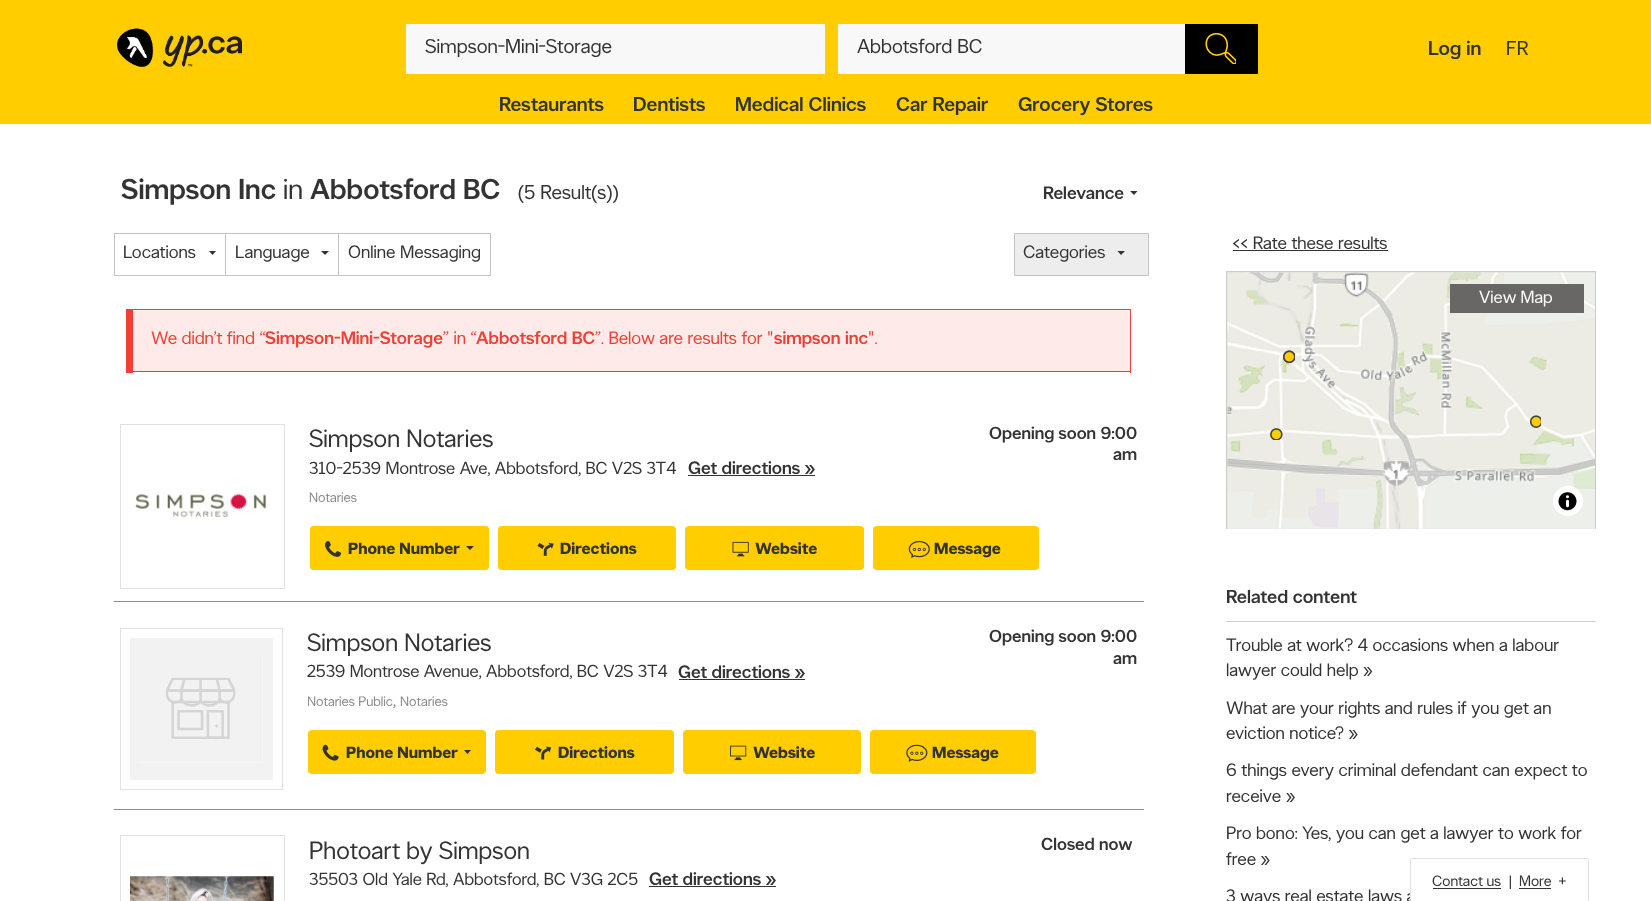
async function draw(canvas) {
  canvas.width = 1651;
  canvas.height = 901;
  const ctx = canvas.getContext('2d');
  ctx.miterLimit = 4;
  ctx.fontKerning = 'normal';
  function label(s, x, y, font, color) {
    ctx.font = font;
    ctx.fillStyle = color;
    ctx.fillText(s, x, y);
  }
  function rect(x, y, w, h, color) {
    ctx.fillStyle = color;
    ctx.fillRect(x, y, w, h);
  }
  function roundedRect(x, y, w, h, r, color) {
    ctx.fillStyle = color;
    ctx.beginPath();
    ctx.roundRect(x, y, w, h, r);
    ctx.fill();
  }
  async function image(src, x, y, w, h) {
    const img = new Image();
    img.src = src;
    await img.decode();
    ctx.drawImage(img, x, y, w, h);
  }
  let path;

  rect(0, 0, 1651, 901, '#fff');
  rect(0, 0, 1651, 124, '#ffcd00');
  await image('assets/img1.png', 117, 28, 126, 40);
  rect(406, 24, 419, 50, '#f8f8f8');
  label('Simpson-Mini-Storage', 425, 53, '20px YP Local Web', '#333');
  rect(838, 24, 347, 50, '#f8f8f8');
  label('Abbotsford BC', 857, 53, '20px YP Local Web', '#333');
  rect(1185, 24, 73, 50, '#000');
  await image('assets/img2.png', 1205, 33, 31, 31);
  label('Log in', 1428, 55, '500 20px YP Local Web', '#333');
  label('FR', 1506, 55, '20px YP Local Web', '#333');
  label('Restaurants', 499, 111, '500 20px YP Local Web', '#333');
  label('Dentists', 633, 111, '500 20px YP Local Web', '#333');
  label('Medical Clinics', 735, 111, '500 20px YP Local Web', '#333');
  label('Car Repair', 896, 111, '500 20px YP Local Web', '#333');
  label('Grocery Stores', 1018, 111, '500 20px YP Local Web', '#333');
  label('Simpson Inc', 121, 199, '500 28.75px YP Local Web', '#333');
  label('in', 283, 199, '28.75px YP Local Web', '#333');
  label('Abbotsford BC', 310, 199, '500 28.75px YP Local Web', '#333');
  label('(5 Result(s))', 518, 199, '20px YP Local Web', '#333');
  label('Relevance', 1043, 199, '500 18px YP Local Web', '#333');
  path = new Path2D('M1130 191H1137.5L1134 195Z');
  ctx.fill(path);
  ctx.strokeStyle = '#c3c3c3';
  ctx.strokeRect(114.5, 233.5, 111, 42);
  label('Locations', 123, 258, '18px YP Local Web', '#333');
  path = new Path2D('M209 251H216L212.5 255Z');
  ctx.fill(path);
  ctx.strokeRect(225.5, 233.5, 113, 42);
  label('Language', 235, 258, '18px YP Local Web', '#333');
  path = new Path2D('M321 251H329L325 255Z');
  ctx.fill(path);
  ctx.strokeRect(338.5, 233.5, 152, 42);
  label('Online Messaging', 348, 258, '18px YP Local Web', '#333');
  ctx.fillStyle = '#eeeded';
  ctx.beginPath();
  ctx.rect(1014.5, 233.5, 134, 42);
  ctx.fill();
  ctx.stroke();
  label('Categories', 1023, 258, '18px YP Local Web', '#333');
  path = new Path2D('M1117.5 251H1125L1121 255Z');
  ctx.fill(path);
  rect(133, 310, 997, 61, '#fdeae9');
  rect(126, 309, 1005, 1, '#ee4036');
  rect(1130, 309, 1, 64, '#ee4036');
  rect(126, 371, 1005, 1, '#ee4036');
  rect(126, 309, 7, 64, '#ee4036');
  label('We didn’t find “', 151, 344, '18px YP Local Web', '#ee4036');
  label('Simpson-Mini-Storage', 265, 344, '500 18px YP Local Web', '#ee4036');
  label('” in “', 443, 344, '18px YP Local Web', '#ee4036');
  label('Abbotsford BC', 476, 344, '500 18px YP Local Web', '#ee4036');
  label('”. Below are results for "', 595, 344, '18px YP Local Web', '#ee4036');
  label('simpson inc', 774, 344, '500 18px YP Local Web', '#ee4036');
  label('".', 868, 344, '18px YP Local Web', '#ee4036');
  rect(114, 601, 1030, 1, '#8a8a8a');
  ctx.strokeStyle = '#e2e2e2';
  ctx.strokeRect(120.5, 424.5, 164, 164);
  await image('assets/img3.png', 135, 492, 132, 25);
  label('Simpson Notaries', 309, 447, '25px YP Local Web', '#333');
  label('310-2539 Montrose Ave, Abbotsford, BC V2S 3T4', 309, 474, '17.5px YP Local Web', '#333');
  label('Get directions »', 688, 474, '500 18px YP Local Web', '#333');
  rect(688, 475, 127, 1, '#333');
  label('Notaries', 309, 502, '13.75px YP Local Web', '#8a8a8a');
  label('Opening soon 9:00', 989, 439, '500 17.5px YP Local Web', '#333');
  label('am', 1113, 460, '500 17.5px YP Local Web', '#333');
  roundedRect(310, 526, 179, 44, 4, '#ffcd00');
  await image('assets/img4.png', 325, 541, 17, 16);
  label('Phone Number', 348, 554, 'bold 16.25px YP Local Web', '#333');
  path = new Path2D('M466 546H474L470 550Z');
  ctx.fill(path);
  roundedRect(498, 526, 178, 44, 4, '#ffcd00');
  await image('assets/img5.png', 537, 542, 17, 14);
  label('Directions', 560, 554, 'bold 16.25px YP Local Web', '#333');
  roundedRect(685, 526, 179, 44, 4, '#ffcd00');
  await image('assets/img6.png', 732, 541, 17, 16);
  label('Website', 755, 554, 'bold 16.25px YP Local Web', '#333');
  roundedRect(873, 526, 166, 44, 4, '#ffcd00');
  await image('assets/img7.png', 908, 541, 22, 17);
  label('Message', 934, 554, 'bold 16.25px YP Local Web', '#333');
  rect(114, 809, 1030, 1, '#8a8a8a');
  ctx.strokeRect(120.5, 628.5, 162, 161);
  rect(130, 638, 143, 142, '#f2f2f2');
  await image('assets/img8.png', 139, 654, 124, 109);
  label('Simpson Notaries', 307, 651, '25px YP Local Web', '#333');
  label('2539 Montrose Avenue, Abbotsford, BC V2S 3T4', 307, 677, '17.5px YP Local Web', '#333');
  label('Get directions »', 678, 678, '500 18px YP Local Web', '#333');
  rect(679, 679, 126, 1, '#333');
  ctx.save();
  ctx.beginPath();
  ctx.rect(308, 691, 141, 23);
  ctx.clip();
  label('Notaries Public', 307, 706, '13.75px YP Local Web', '#8a8a8a');
  ctx.restore();
  label(',', 393, 706, '18px YP Local Web', '#8a8a8a');
  label('Notaries', 400, 706, '13.75px YP Local Web', '#8a8a8a');
  label('Opening soon 9:00', 989, 642, '500 17.5px YP Local Web', '#333');
  label('am', 1113, 664, '500 17.5px YP Local Web', '#333');
  roundedRect(308, 730, 178, 44, 4, '#ffcd00');
  await image('assets/img9.png', 322, 744, 17, 17);
  label('Phone Number', 346, 758, 'bold 16.25px YP Local Web', '#333');
  path = new Path2D('M464 750H471L467.5 754Z');
  ctx.fill(path);
  roundedRect(495, 730, 179, 44, 4, '#ffcd00');
  await image('assets/img10.png', 535, 746, 17, 14);
  label('Directions', 558, 758, 'bold 16.25px YP Local Web', '#333');
  roundedRect(683, 730, 178, 44, 4, '#ffcd00');
  await image('assets/img11.png', 730, 745, 17, 16);
  label('Website', 753, 758, 'bold 16.25px YP Local Web', '#333');
  roundedRect(870, 730, 166, 44, 4, '#ffcd00');
  await image('assets/img12.png', 906, 744, 22, 18);
  label('Message', 932, 758, 'bold 16.25px YP Local Web', '#333');
  ctx.strokeRect(120.5, 835.5, 164, 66);
  await image('assets/img13.png', 130, 876, 144, 25);
  label('Photoart by Simpson', 309, 859, '25px YP Local Web', '#333');
  label('35503 Old Yale Rd, Abbotsford, BC V3G 2C5', 309, 885, '17.5px YP Local Web', '#333');
  label('Get directions »', 649, 885, '500 18px YP Local Web', '#333');
  rect(649, 886, 127, 1, '#333');
  label('Closed now', 1041, 850, '500 17.5px YP Local Web', '#333');
  label('<< Rate these results', 1232, 249, '18px YP Local Web', '#333');
  rect(1233, 250, 155, 1, '#333');
  rect(1227, 272, 368, 257, '#e1e1e1');
  rect(1226, 271, 370, 1, '#cbcbcb');
  rect(1595, 271, 1, 258, '#cbcbcb');
  rect(1226, 271, 1, 258, '#cbcbcb');
  await image('assets/img14.png', 1227, 272, 368, 257);
  await image('assets/img15.png', 1283, 350, 12, 13);
  await image('assets/img16.png', 1283, 350, 12, 13);
  await image('assets/img17.png', 1529, 415, 12, 13);
  await image('assets/img18.png', 1270, 428, 13, 12);
  ctx.fillStyle = '#fff';
  ctx.beginPath();
  ctx.arc(1568, 501, 15, 0, 2 * Math.PI);
  ctx.fill();
  ctx.fillStyle = '#ffffff80';
  ctx.beginPath();
  ctx.arc(1568, 501, 15, 0, 2 * Math.PI);
  ctx.fill();
  await image('assets/img19.png', 1558, 492, 19, 19);
  rect(1450, 284, 134, 29, '#696666');
  label('View Map', 1479, 303, '17.5px YP Local Web', '#fff');
  rect(1226, 621, 370, 1, '#d0d0d0');
  label('Related content', 1226, 603, '500 18.75px YP Local Web', '#333');
  label('Trouble at work? 4 occasions when a labour', 1226, 651, '18px YP Local Web', '#333');
  label('lawyer could help »', 1226, 676, '18px YP Local Web', '#333');
  label('What are your rights and rules if you get an', 1226, 714, '18px YP Local Web', '#333');
  label('eviction notice? »', 1226, 739, '18px YP Local Web', '#333');
  label('6 things every criminal defendant can expect to', 1226, 776, '18px YP Local Web', '#333');
  label('receive »', 1226, 802, '18px YP Local Web', '#333');
  label('Pro bono: Yes, you can get a lawyer to work for', 1226, 839, '18px YP Local Web', '#333');
  label('free »', 1226, 865, '18px YP Local Web', '#333');
  label('3 ways real estate laws a', 1226, 902, '18px YP Local Web', '#333');
  ctx.fillStyle = '#fff';
  ctx.beginPath();
  ctx.roundRect(1411, 859, 177, 42, [1, 1, 0, 0]);
  ctx.fill();
  rect(1411, 858, 177, 1, '#e2e2e2');
  rect(1588, 859, 1, 42, '#e2e2e2');
  rect(1410, 859, 1, 42, '#e2e2e2');
  label('Contact us', 1432, 886, '15px YP Local Web', '#333');
  rect(1433, 888, 68, 1, '#333');
  label('|', 1509, 886, '15px YP Local Web', '#333');
  label('More', 1519, 886, '15px YP Local Web', '#333');
  rect(1519, 888, 32, 1, '#333');
  label('+', 1558, 886, '15px YP Local Web', '#333');
}

draw(document.querySelector('canvas'));
